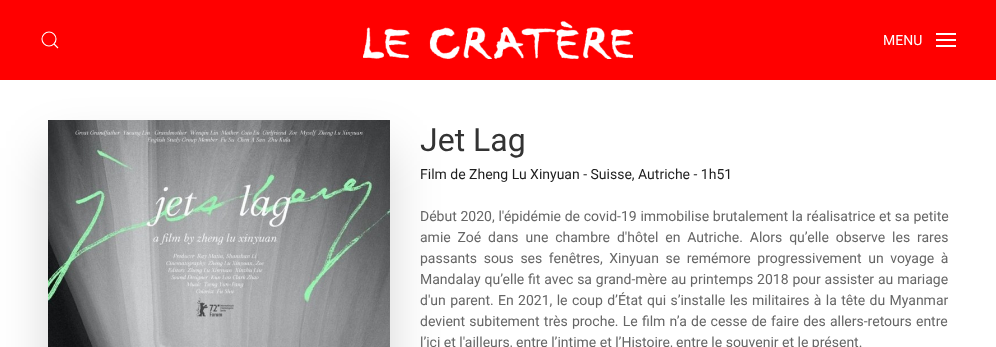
async function draw(canvas) {
  canvas.width = 996;
  canvas.height = 347;
  const ctx = canvas.getContext('2d');
  ctx.miterLimit = 4;
  ctx.fontKerning = 'normal';
  function label(s, x, y, font, color) {
    ctx.font = font;
    ctx.fillStyle = color;
    ctx.fillText(s, x, y);
  }
  function rect(x, y, w, h, color) {
    ctx.fillStyle = color;
    ctx.fillRect(x, y, w, h);
  }
  async function image(src, x, y, w, h) {
    const img = new Image();
    img.src = src;
    await img.decode();
    ctx.drawImage(img, x, y, w, h);
  }
  let path;

  rect(0, 0, 996, 347, '#fff');
  rect(0, 0, 996, 80, '#f00');
  ctx.beginPath();
  ctx.arc(49, 39, 7, 0, 2 * Math.PI);
  ctx.strokeStyle = '#fff';
  ctx.lineWidth = 1.1;
  ctx.stroke();
  path = new Path2D('M54 44L58 48Z');
  ctx.stroke(path);
  await image('assets/img1.png', 363, 21, 270, 38);
  label('MENU', 883, 45, '14px Roboto', '#fff');
  rect(936, 33, 20, 2, '#fff');
  rect(936, 39, 20, 2, '#fff');
  rect(936, 45, 20, 2, '#fff');
  ctx.fillStyle = '#00000029';
  ctx.filter = 'blur(25px)';
  ctx.beginPath();
  ctx.rect(48, 148, 342, 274);
  ctx.fill();
  ctx.filter = 'none';
  await image('assets/img2.png', 48, 120, 342, 227);
  label('Jet Lag', 420, 151, '32px Roboto', '#333');
  label('Film de Zheng Lu Xinyuan - Suisse, Autriche - 1h51', 420, 179, '14px Roboto', '#1e1e1e');
  ctx.wordSpacing = '0.25px';
  label('Début 2020, l\'épidémie de covid-19 immobilise brutalement la réalisatrice et sa petite', 420, 221, '14px Roboto', '#666');
  ctx.wordSpacing = '3.4px';
  label('amie Zoé dans une chambre d\'hôtel en Autriche. Alors qu’elle observe les rares', 420, 242, '14px Roboto', '#666');
  ctx.wordSpacing = '3.1px';
  label('passants sous ses fenêtres, Xinyuan se remémore progressivement un voyage à', 420, 263, '14px Roboto', '#666');
  ctx.wordSpacing = '0.4px';
  label('Mandalay qu’elle fit avec sa grand-mère au printemps 2018 pour assister au mariage', 420, 284, '14px Roboto', '#666');
  ctx.wordSpacing = '0.9px';
  label('d\'un parent. En 2021, le coup d’État qui s’installe les militaires à la tête du Myanmar', 420, 305, '14px Roboto', '#666');
  ctx.wordSpacing = '0.75px';
  label('devient subitement très proche. Le film n’a de cesse de faire des allers-retours entre', 420, 326, '14px Roboto', '#666');
  ctx.wordSpacing = '0px';
  label('l’ici et l\'ailleurs, entre l’intime et l’Histoire, entre le souvenir et le présent.', 420, 347, '14px Roboto', '#666');
}

draw(document.querySelector('canvas'));
